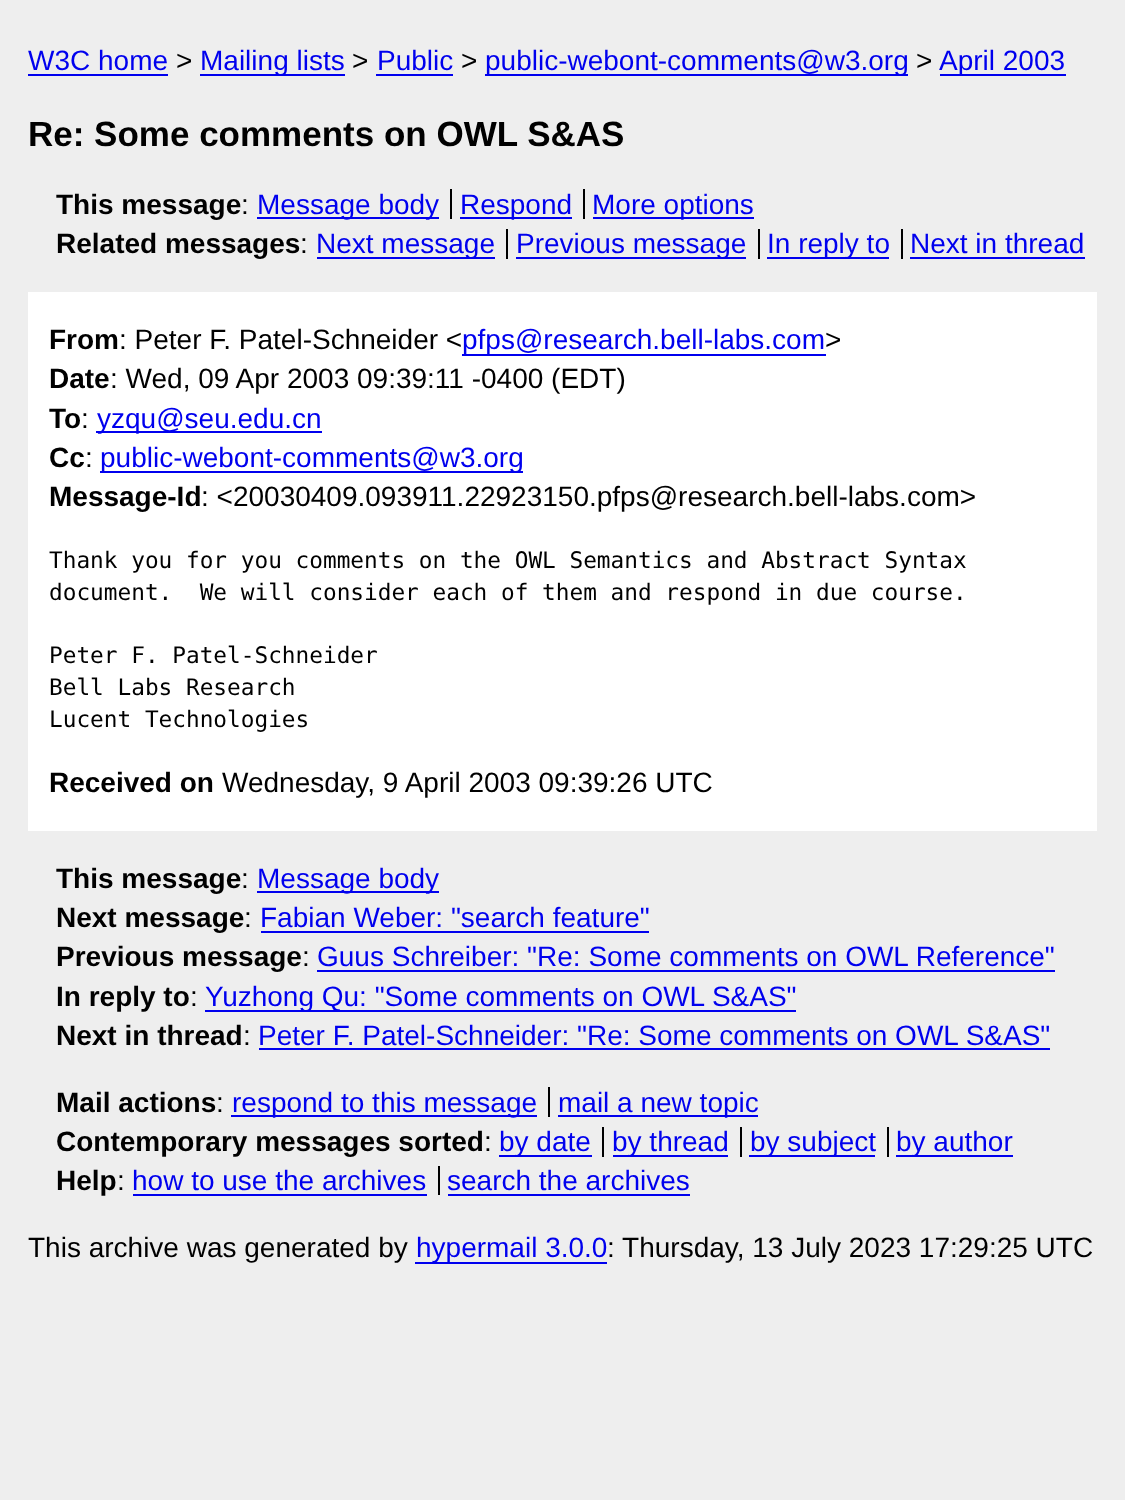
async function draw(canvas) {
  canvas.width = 1125;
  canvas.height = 1500;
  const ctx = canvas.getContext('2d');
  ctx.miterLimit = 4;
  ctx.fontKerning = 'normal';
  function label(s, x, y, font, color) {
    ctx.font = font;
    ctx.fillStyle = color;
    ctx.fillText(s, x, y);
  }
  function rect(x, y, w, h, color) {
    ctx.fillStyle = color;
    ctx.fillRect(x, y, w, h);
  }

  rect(0, 0, 1125, 1500, '#eee');
  label('W3C home', 28, 70, '28px Liberation Sans', '#00e');
  rect(28, 74, 140, 2, '#00e');
  label('>', 176, 70, '28px Liberation Sans', '#000');
  rect(200, 74, 145, 2, '#00e');
  label('Mailing lists', 200, 70, '28px Liberation Sans', '#00e');
  label('>', 352, 70, '28px Liberation Sans', '#000');
  label('Public', 377, 70, '28px Liberation Sans', '#00e');
  rect(376, 74, 77, 2, '#00e');
  label('>', 461, 70, '28px Liberation Sans', '#000');
  rect(485, 74, 423, 2, '#00e');
  label('public-webont-comments@w3.org', 485, 70, '28px Liberation Sans', '#00e');
  label('>', 916, 70, '28px Liberation Sans', '#000');
  rect(940, 74, 126, 2, '#00e');
  label('April 2003', 939, 70, '28px Liberation Sans', '#00e');
  label('Re: Some comments on OWL S&AS', 28, 146, 'bold 35px Liberation Sans', '#000');
  label('This message', 56, 214, 'bold 28px Liberation Sans', '#000');
  label(':', 241, 214, '28px Liberation Sans', '#000');
  rect(257, 217, 182, 2, '#00e');
  label('Message body', 257, 214, '28px Liberation Sans', '#00e');
  rect(460, 217, 112, 2, '#00e');
  label('Respond', 460, 214, '28px Liberation Sans', '#00e');
  rect(450, 189, 2, 30, '#000');
  rect(593, 217, 161, 2, '#00e');
  label('More options', 592, 214, '28px Liberation Sans', '#00e');
  rect(583, 189, 2, 30, '#000');
  label('Related messages', 56, 253, 'bold 28px Liberation Sans', '#000');
  label(':', 300, 253, '28px Liberation Sans', '#000');
  rect(317, 257, 178, 2, '#00e');
  label('Next message', 316, 253, '28px Liberation Sans', '#00e');
  rect(516, 257, 230, 2, '#00e');
  label('Previous message', 516, 253, '28px Liberation Sans', '#00e');
  rect(506, 229, 2, 30, '#000');
  rect(767, 257, 122, 2, '#00e');
  label('In reply to', 767, 253, '28px Liberation Sans', '#00e');
  rect(758, 229, 2, 30, '#000');
  label('Next in thread', 910, 253, '28px Liberation Sans', '#00e');
  rect(901, 229, 2, 30, '#000');
  rect(910, 257, 175, 2, '#00e');
  rect(28, 292, 1069, 539, '#fff');
  label('From', 49, 349, 'bold 28px Liberation Sans', '#000');
  label(': Peter F. Patel-Schneider <', 119, 349, '28px Liberation Sans', '#000');
  rect(462, 354, 364, 2, '#00e');
  label('pfps@research.bell-labs.com', 462, 349, '28px Liberation Sans', '#00e');
  label('>', 825, 349, '28px Liberation Sans', '#000');
  label('Date', 49, 388, 'bold 28px Liberation Sans', '#000');
  label(': Wed, 09 Apr 2003 09:39:11 -0400 (EDT)', 110, 388, '28px Liberation Sans', '#000');
  label('To', 49, 428, 'bold 28px Liberation Sans', '#000');
  label(':', 81, 428, '28px Liberation Sans', '#000');
  rect(96, 431, 226, 2, '#00e');
  label('yzqu@seu.edu.cn', 97, 428, '28px Liberation Sans', '#00e');
  label('Cc', 49, 467, 'bold 28px Liberation Sans', '#000');
  label(':', 85, 467, '28px Liberation Sans', '#000');
  rect(100, 471, 423, 2, '#00e');
  label('public-webont-comments@w3.org', 100, 467, '28px Liberation Sans', '#00e');
  label('Message-Id', 49, 506, 'bold 28px Liberation Sans', '#000');
  label(': <20030409.093911.22923150.pfps@research.bell-labs.com>', 201, 506, '28px Liberation Sans', '#000');
  label('Thank you for you comments on the OWL Semantics and Abstract Syntax', 49, 568, '22.75px DejaVu Sans Mono', '#000');
  label('document.  We will consider each of them and respond in due course.', 49, 600, '22.75px DejaVu Sans Mono', '#000');
  label('Peter F. Patel-Schneider', 49, 663, '22.75px DejaVu Sans Mono', '#000');
  label('Bell Labs Research', 49, 695, '22.75px DejaVu Sans Mono', '#000');
  label('Lucent Technologies', 49, 727, '22.75px DejaVu Sans Mono', '#000');
  label('Received on', 49, 792, 'bold 28px Liberation Sans', '#000');
  label('Wednesday, 9 April 2003 09:39:26 UTC', 222, 792, '28px Liberation Sans', '#000');
  label('This message', 56, 888, 'bold 28px Liberation Sans', '#000');
  label(':', 241, 888, '28px Liberation Sans', '#000');
  rect(257, 891, 182, 2, '#00e');
  label('Message body', 257, 888, '28px Liberation Sans', '#00e');
  label('Next message', 56, 927, 'bold 28px Liberation Sans', '#000');
  label(':', 244, 927, '28px Liberation Sans', '#000');
  label('Fabian Weber: "search feature"', 260, 927, '28px Liberation Sans', '#00e');
  rect(261, 931, 388, 2, '#00e');
  label('Previous message', 56, 966, 'bold 28px Liberation Sans', '#000');
  label(':', 302, 966, '28px Liberation Sans', '#000');
  label('Guus Schreiber: "Re: Some comments on OWL Reference"', 317, 966, '28px Liberation Sans', '#00e');
  rect(317, 970, 738, 2, '#00e');
  label('In reply to', 56, 1006, 'bold 28px Liberation Sans', '#000');
  label(':', 190, 1006, '28px Liberation Sans', '#000');
  rect(205, 1010, 591, 2, '#00e');
  label('Yuzhong Qu: "Some comments on OWL S&AS"', 205, 1006, '28px Liberation Sans', '#00e');
  label('Next in thread', 56, 1045, 'bold 28px Liberation Sans', '#000');
  label(':', 243, 1045, '28px Liberation Sans', '#000');
  label('Peter F. Patel-Schneider: "Re: Some comments on OWL S&AS"', 258, 1045, '28px Liberation Sans', '#00e');
  rect(259, 1048, 791, 2, '#00e');
  label('Mail actions', 56, 1112, 'bold 28px Liberation Sans', '#000');
  label(':', 216, 1112, '28px Liberation Sans', '#000');
  rect(231, 1115, 306, 2, '#00e');
  label('respond to this message', 232, 1112, '28px Liberation Sans', '#00e');
  rect(558, 1115, 200, 2, '#00e');
  label('mail a new topic', 558, 1112, '28px Liberation Sans', '#00e');
  rect(548, 1087, 2, 30, '#000');
  label('Contemporary messages sorted', 56, 1151, 'bold 28px Liberation Sans', '#000');
  label(':', 484, 1151, '28px Liberation Sans', '#000');
  rect(499, 1155, 93, 2, '#00e');
  label('by date', 499, 1151, '28px Liberation Sans', '#00e');
  rect(613, 1155, 115, 2, '#00e');
  label('by thread', 612, 1151, '28px Liberation Sans', '#00e');
  rect(602, 1127, 2, 30, '#000');
  rect(749, 1155, 126, 2, '#00e');
  label('by subject', 750, 1151, '28px Liberation Sans', '#00e');
  rect(740, 1127, 2, 30, '#000');
  rect(896, 1155, 117, 2, '#00e');
  label('by author', 896, 1151, '28px Liberation Sans', '#00e');
  rect(887, 1127, 2, 30, '#000');
  label('Help', 56, 1190, 'bold 28px Liberation Sans', '#000');
  label(':', 117, 1190, '28px Liberation Sans', '#000');
  label('how to use the archives', 132, 1190, '28px Liberation Sans', '#00e');
  rect(133, 1194, 294, 2, '#00e');
  label('search the archives', 447, 1190, '28px Liberation Sans', '#00e');
  rect(438, 1166, 2, 29, '#000');
  rect(448, 1194, 242, 2, '#00e');
  label('This archive was generated by', 28, 1257, '28px Liberation Sans', '#000');
  rect(415, 1262, 192, 2, '#00e');
  label('hypermail 3.0.0', 416, 1257, '28px Liberation Sans', '#00e');
  label(': Thursday, 13 July 2023 17:29:25 UTC', 607, 1257, '28px Liberation Sans', '#000');
}

draw(document.querySelector('canvas'));
